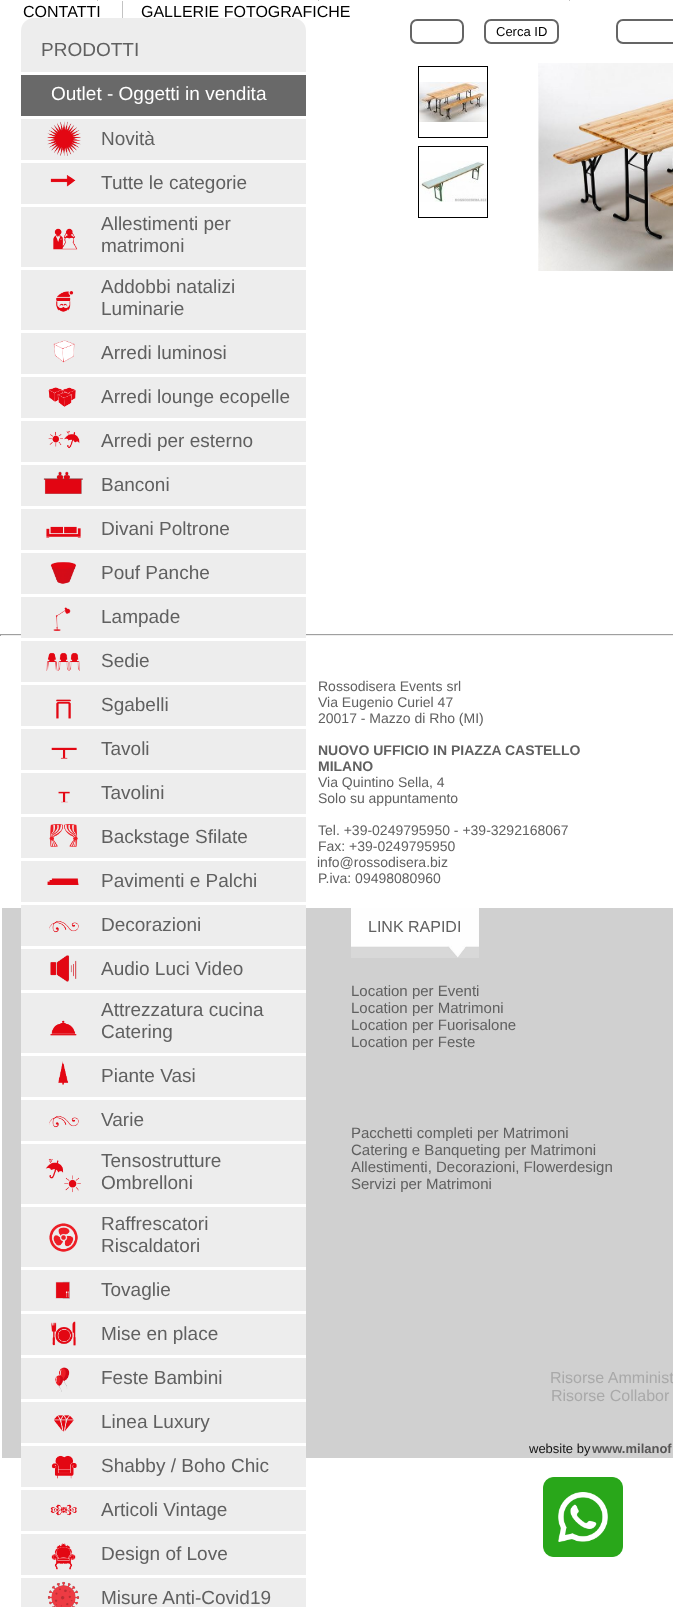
async function draw(canvas) {
  canvas.width = 673;
  canvas.height = 1607;
  const ctx = canvas.getContext('2d');
  ctx.miterLimit = 4;
  ctx.fontKerning = 'normal';
  function label(s, x, y, font, color) {
    ctx.font = font;
    ctx.fillStyle = color;
    ctx.fillText(s, x, y);
  }
  function rect(x, y, w, h, color) {
    ctx.fillStyle = color;
    ctx.fillRect(x, y, w, h);
  }
  async function image(src, x, y, w, h) {
    const img = new Image();
    img.src = src;
    await img.decode();
    ctx.drawImage(img, x, y, w, h);
  }

  rect(0, 0, 673, 1607, '#fff');
  rect(97, 0, 1, 1, '#c3c3c3');
  rect(318, 0, 1, 1, '#c3c3c3');
  rect(569, 0, 1, 1, '#c3c3c3');
  rect(122, 1, 1, 21, '#c3c3c3');
  label('CONTATTI', 23, 17, '16px Liberation Sans', '#000');
  label('GALLERIE FOTOGRAFICHE', 141, 17, '16px Liberation Sans', '#000');
  await image('assets/img1.png', 543, 1477, 80, 80);
  ctx.beginPath();
  ctx.roundRect(411, 20, 52, 23, 6);
  ctx.strokeStyle = '#656565';
  ctx.lineWidth = 2;
  ctx.stroke();
  ctx.beginPath();
  ctx.roundRect(485, 20, 73, 23, 6);
  ctx.stroke();
  label('Cerca ID', 496, 36, '13px Liberation Sans', '#000');
  ctx.beginPath();
  ctx.roundRect(617, 20, 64, 23, 6);
  ctx.stroke();
  await image('assets/img2.png', 419, 82, 68, 40);
  ctx.strokeStyle = '#000';
  ctx.lineWidth = 1;
  ctx.strokeRect(418.5, 66.5, 69, 71);
  await image('assets/img3.png', 419, 161, 68, 41);
  ctx.strokeRect(418.5, 146.5, 69, 71);
  await image('assets/img4.png', 538, 63, 135, 208);
  ctx.fillStyle = '#ededed';
  ctx.beginPath();
  ctx.roundRect(21, 18, 285, 13, [13, 13, 0, 0]);
  ctx.fill();
  rect(21, 31, 285, 41, '#ededed');
  label('PRODOTTI', 41, 56, '19px Liberation Sans', '#606060');
  rect(21, 75, 285, 41, '#696969');
  label('Outlet - Oggetti in vendita', 51, 100, '19px Liberation Sans', '#fff');
  rect(21, 119, 285, 41, '#ededed');
  await image('assets/img5.png', 47, 121, 34, 35);
  label('Novità', 101, 145, '19px Liberation Sans', '#606060');
  rect(21, 163, 285, 41, '#ededed');
  await image('assets/img6.png', 50, 175, 26, 12);
  label('Tutte le categorie', 101, 189, '19px Liberation Sans', '#606060');
  rect(21, 207, 285, 60, '#ededed');
  await image('assets/img7.png', 53, 228, 25, 22);
  label('Allestimenti per', 101, 230, '19px Liberation Sans', '#606060');
  label('matrimoni', 101, 252, '19px Liberation Sans', '#606060');
  rect(21, 270, 285, 60, '#ededed');
  await image('assets/img8.png', 56, 291, 18, 21);
  label('Addobbi natalizi', 101, 293, '19px Liberation Sans', '#606060');
  label('Luminarie', 101, 315, '19px Liberation Sans', '#606060');
  rect(21, 333, 285, 41, '#ededed');
  await image('assets/img9.png', 53, 340, 22, 23);
  label('Arredi luminosi', 101, 359, '19px Liberation Sans', '#606060');
  rect(21, 377, 285, 41, '#ededed');
  await image('assets/img10.png', 48, 387, 28, 20);
  label('Arredi lounge ecopelle', 101, 403, '19px Liberation Sans', '#606060');
  rect(21, 421, 285, 41, '#ededed');
  await image('assets/img11.png', 48, 430, 32, 19);
  label('Arredi per esterno', 101, 447, '19px Liberation Sans', '#606060');
  rect(21, 465, 285, 41, '#ededed');
  await image('assets/img12.png', 43, 471, 40, 23);
  label('Banconi', 101, 491, '19px Liberation Sans', '#606060');
  rect(21, 509, 285, 41, '#ededed');
  await image('assets/img13.png', 46, 526, 35, 12);
  label('Divani Poltrone', 101, 535, '19px Liberation Sans', '#606060');
  rect(21, 553, 285, 41, '#ededed');
  await image('assets/img14.png', 50, 562, 26, 22);
  label('Pouf Panche', 101, 579, '19px Liberation Sans', '#606060');
  rect(0, 634, 673, 1, '#9f9f9f');
  rect(0, 635, 673, 1, '#eee');
  rect(21, 597, 285, 41, '#ededed');
  await image('assets/img15.png', 53, 607, 18, 24);
  label('Lampade', 101, 623, '19px Liberation Sans', '#606060');
  rect(21, 641, 285, 41, '#ededed');
  await image('assets/img16.png', 46, 652, 34, 19);
  label('Sedie', 101, 667, '19px Liberation Sans', '#606060');
  rect(21, 685, 285, 41, '#ededed');
  await image('assets/img17.png', 56, 699, 15, 20);
  label('Sgabelli', 101, 711, '19px Liberation Sans', '#606060');
  rect(21, 729, 285, 41, '#ededed');
  await image('assets/img18.png', 51, 747, 26, 12);
  label('Tavoli', 101, 755, '19px Liberation Sans', '#606060');
  rect(21, 773, 285, 41, '#ededed');
  await image('assets/img19.png', 58, 791, 12, 12);
  label('Tavolini', 101, 799, '19px Liberation Sans', '#606060');
  rect(21, 817, 285, 41, '#ededed');
  await image('assets/img20.png', 49, 824, 29, 23);
  label('Backstage Sfilate', 101, 843, '19px Liberation Sans', '#606060');
  rect(21, 861, 285, 41, '#ededed');
  await image('assets/img21.png', 47, 878, 32, 7);
  label('Pavimenti e Palchi', 101, 887, '19px Liberation Sans', '#606060');
  rect(2, 908, 671, 550, '#d0d0d0');
  rect(21, 905, 285, 41, '#ededed');
  rect(21, 946, 285, 3, '#fff');
  await image('assets/img22.png', 49, 920, 30, 13);
  label('Decorazioni', 101, 931, '19px Liberation Sans', '#606060');
  rect(21, 949, 285, 41, '#ededed');
  rect(21, 990, 285, 3, '#fff');
  await image('assets/img23.png', 50, 955, 27, 27);
  label('Audio Luci Video', 101, 975, '19px Liberation Sans', '#606060');
  rect(21, 993, 285, 60, '#ededed');
  rect(21, 1053, 285, 3, '#fff');
  await image('assets/img24.png', 50, 1020, 27, 16);
  label('Attrezzatura cucina', 101, 1016, '19px Liberation Sans', '#606060');
  label('Catering', 101, 1038, '19px Liberation Sans', '#606060');
  rect(21, 1056, 285, 41, '#ededed');
  rect(21, 1097, 285, 3, '#fff');
  await image('assets/img25.png', 58, 1061, 11, 24);
  label('Piante Vasi', 101, 1082, '19px Liberation Sans', '#606060');
  rect(21, 1100, 285, 41, '#ededed');
  rect(21, 1141, 285, 3, '#fff');
  await image('assets/img22.png', 49, 1115, 30, 13);
  label('Varie', 101, 1126, '19px Liberation Sans', '#606060');
  rect(21, 1144, 285, 60, '#ededed');
  rect(21, 1204, 285, 3, '#fff');
  await image('assets/img26.png', 45, 1158, 36, 35);
  label('Tensostrutture', 101, 1167, '19px Liberation Sans', '#606060');
  label('Ombrelloni', 101, 1189, '19px Liberation Sans', '#606060');
  rect(21, 1207, 285, 60, '#ededed');
  rect(21, 1267, 285, 3, '#fff');
  await image('assets/img27.png', 49, 1223, 29, 29);
  label('Raffrescatori', 101, 1230, '19px Liberation Sans', '#606060');
  label('Riscaldatori', 101, 1252, '19px Liberation Sans', '#606060');
  rect(21, 1270, 285, 41, '#ededed');
  rect(21, 1311, 285, 3, '#fff');
  await image('assets/img28.png', 55, 1281, 15, 18);
  label('Tovaglie', 101, 1296, '19px Liberation Sans', '#606060');
  rect(21, 1314, 285, 41, '#ededed');
  rect(21, 1355, 285, 3, '#fff');
  await image('assets/img29.png', 51, 1321, 25, 25);
  label('Mise en place', 101, 1340, '19px Liberation Sans', '#606060');
  rect(21, 1358, 285, 41, '#ededed');
  rect(21, 1399, 285, 3, '#fff');
  await image('assets/img30.png', 55, 1367, 15, 25);
  label('Feste Bambini', 101, 1384, '19px Liberation Sans', '#606060');
  rect(21, 1402, 285, 41, '#ededed');
  rect(21, 1443, 285, 3, '#fff');
  await image('assets/img31.png', 54, 1415, 20, 17);
  label('Linea Luxury', 101, 1428, '19px Liberation Sans', '#606060');
  rect(21, 1446, 285, 41, '#ededed');
  await image('assets/img32.png', 51, 1455, 26, 24);
  label('Shabby / Boho Chic', 101, 1472, '19px Liberation Sans', '#606060');
  rect(21, 1490, 285, 41, '#ededed');
  await image('assets/img33.png', 50, 1504, 27, 12);
  label('Articoli Vintage', 101, 1516, '19px Liberation Sans', '#606060');
  rect(21, 1534, 285, 41, '#ededed');
  await image('assets/img34.png', 51, 1543, 25, 27);
  label('Design of Love', 101, 1560, '19px Liberation Sans', '#606060');
  rect(21, 1578, 285, 29, '#ededed');
  await image('assets/img35.png', 47, 1581, 33, 26);
  label('Misure Anti-Covid19', 101, 1604, '19px Liberation Sans', '#606060');
  rect(0, 634, 1, 2, '#9f9f9f');
  label('Rossodisera Events srl', 318, 691, '14px Liberation Sans', '#606060');
  label('Via Eugenio Curiel 47', 318, 707, '14px Liberation Sans', '#606060');
  label('20017 - Mazzo di Rho (MI)', 318, 723, '14px Liberation Sans', '#606060');
  label('NUOVO UFFICIO IN PIAZZA CASTELLO', 318, 755, 'bold 14px Liberation Sans', '#606060');
  label('MILANO', 318, 771, 'bold 14px Liberation Sans', '#606060');
  label('Via Quintino Sella, 4', 318, 787, '14px Liberation Sans', '#606060');
  label('Solo su appuntamento', 318, 803, '14px Liberation Sans', '#606060');
  label('Tel. +39-0249795950 - +39-3292168067', 318, 835, '14px Liberation Sans', '#606060');
  label('Fax: +39-0249795950', 318, 851, '14px Liberation Sans', '#606060');
  label('info@rossodisera.biz', 317, 867, '14px Liberation Sans', '#606060');
  label('P.iva: 09498080960', 318, 883, '14px Liberation Sans', '#606060');
  await image('assets/img36.png', 351, 908, 128, 50);
  label('LINK RAPIDI', 368, 932, '16px Liberation Sans', '#606060');
  label('Location per Eventi', 351, 996, '15px Liberation Sans', '#606060');
  label('Location per Matrimoni', 351, 1013, '15px Liberation Sans', '#606060');
  label('Location per Fuorisalone', 351, 1030, '15px Liberation Sans', '#606060');
  label('Location per Feste', 351, 1047, '15px Liberation Sans', '#606060');
  label('Pacchetti completi per Matrimoni', 351, 1138, '15px Liberation Sans', '#606060');
  label('Catering e Banqueting per Matrimoni', 351, 1155, '15px Liberation Sans', '#606060');
  label('Allestimenti, Decorazioni, Flowerdesign', 351, 1172, '15px Liberation Sans', '#606060');
  label('Servizi per Matrimoni', 351, 1189, '15px Liberation Sans', '#606060');
  label('Risorse Amminist', 550, 1383, '16px Liberation Sans', '#a9a9a9');
  label('Risorse Collabor', 551, 1401, '16px Liberation Sans', '#a9a9a9');
  label('website by', 529, 1453, '13px Liberation Sans', '#121212');
  label('www.milanof', 592, 1453, 'bold 13px Liberation Sans', '#575656');
}

draw(document.querySelector('canvas'));
